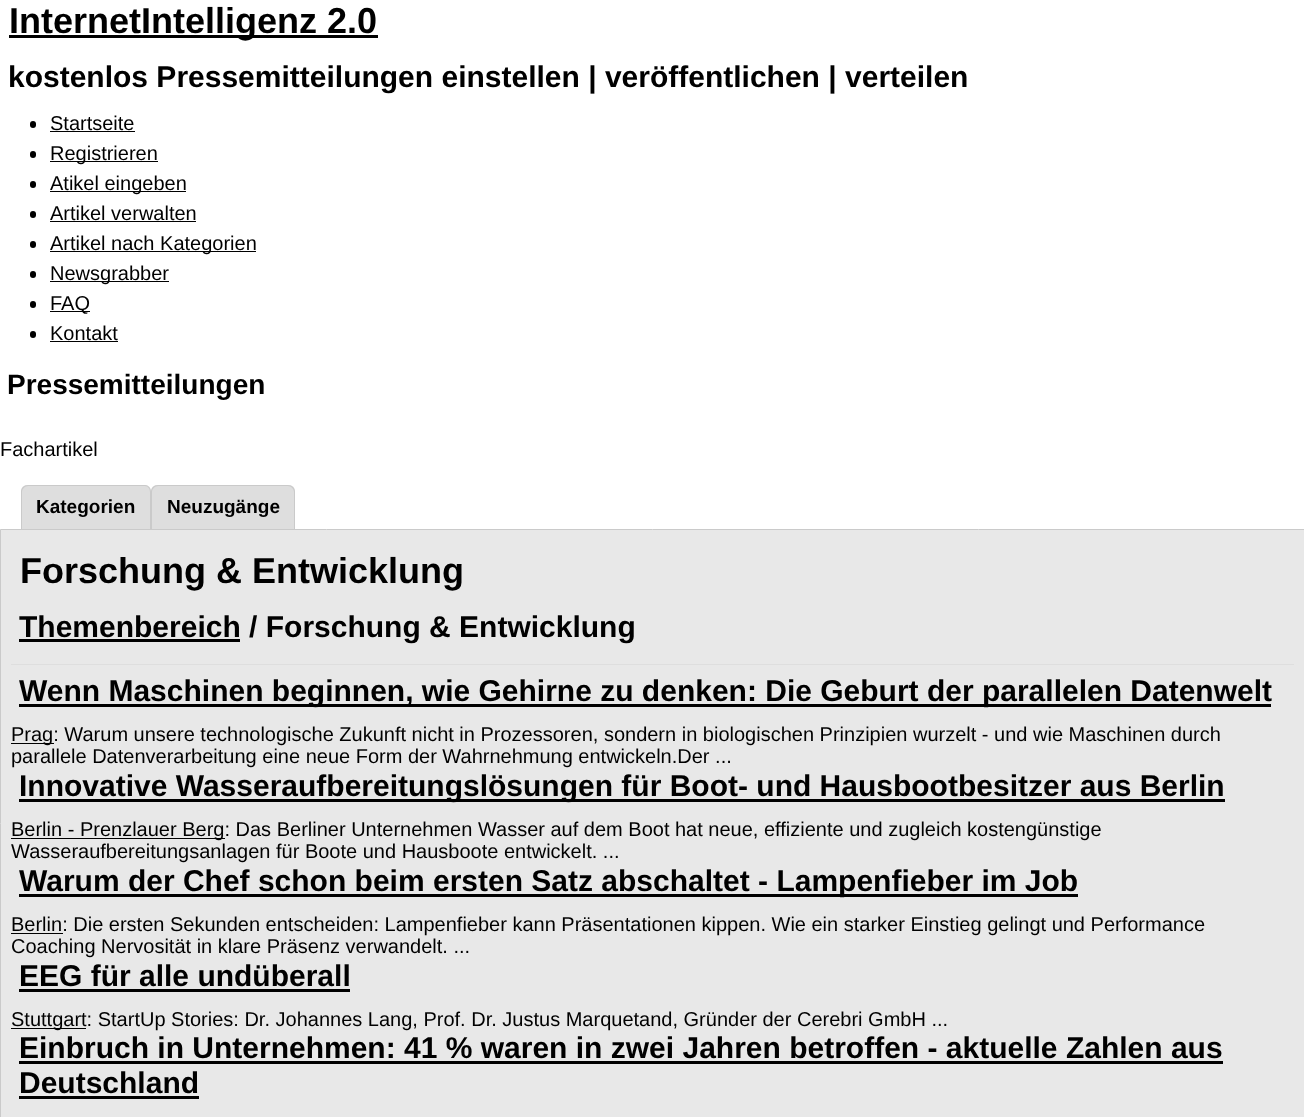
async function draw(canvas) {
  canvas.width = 1304;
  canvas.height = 1117;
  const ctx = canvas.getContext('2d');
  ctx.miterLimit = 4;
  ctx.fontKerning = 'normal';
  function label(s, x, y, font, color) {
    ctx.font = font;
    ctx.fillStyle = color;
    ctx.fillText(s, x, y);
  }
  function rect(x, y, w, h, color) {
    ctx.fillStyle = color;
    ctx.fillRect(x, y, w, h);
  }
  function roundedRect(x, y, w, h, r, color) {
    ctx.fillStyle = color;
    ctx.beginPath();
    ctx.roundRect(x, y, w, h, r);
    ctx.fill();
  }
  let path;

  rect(0, 0, 1304, 1117, '#fff');
  rect(9, 35, 369, 3, '#000');
  label('InternetIntelligenz 2.0', 9, 33, 'bold 36px Liberation Sans', '#000');
  label('kostenlos Pressemitteilungen einstellen | veröffentlichen | verteilen', 8, 87, 'bold 30px Liberation Sans', '#000');
  roundedRect(30, 121, 6, 7, 3, '#000');
  label('Startseite', 50, 130, '20px Liberation Sans', '#000');
  rect(50, 131, 85, 1, '#000');
  roundedRect(30, 151, 6, 7, 3, '#000');
  rect(50, 161, 108, 1, '#000');
  label('Registrieren', 50, 160, '20px Liberation Sans', '#000');
  roundedRect(30, 181, 6, 7, 3, '#000');
  rect(50, 191, 136, 1, '#000');
  label('Atikel eingeben', 50, 190, '20px Liberation Sans', '#000');
  roundedRect(30, 211, 6, 7, 3, '#000');
  label('Artikel verwalten', 50, 220, '20px Liberation Sans', '#000');
  rect(50, 221, 146, 1, '#000');
  roundedRect(30, 241, 6, 7, 3, '#000');
  rect(50, 251, 206, 1, '#000');
  label('Artikel nach Kategorien', 50, 250, '20px Liberation Sans', '#000');
  roundedRect(30, 271, 6, 7, 3, '#000');
  rect(50, 281, 119, 1, '#000');
  label('Newsgrabber', 50, 280, '20px Liberation Sans', '#000');
  roundedRect(30, 301, 6, 7, 3, '#000');
  rect(50, 311, 40, 1, '#000');
  label('FAQ', 50, 310, '20px Liberation Sans', '#000');
  roundedRect(30, 331, 6, 7, 3, '#000');
  label('Kontakt', 50, 340, '20px Liberation Sans', '#000');
  rect(50, 341, 68, 1, '#000');
  label('Pressemitteilungen', 7, 394, 'bold 28px Liberation Sans', '#000');
  label('Fachartikel', 0, 456, '20px Liberation Sans', '#000');
  ctx.fillStyle = '#dedede';
  ctx.beginPath();
  ctx.roundRect(21, 485, 130, 44, [6, 6, 0, 0]);
  ctx.fill();
  ctx.fillStyle = '#cacaca';
  path = new Path2D('M28 485H145C148 485 151 488 151 492V529H21V492C21 488 24 485 28 485ZM28 486H145C148 486 150 489 150 492V529H22V492C22 489 25 486 28 486Z');
  ctx.fill(path, 'evenodd');
  label('Kategorien', 36, 513, 'bold 19px Liberation Sans', '#000');
  ctx.fillStyle = '#dedede';
  ctx.beginPath();
  ctx.roundRect(151, 485, 144, 44, [6, 6, 0, 0]);
  ctx.fill();
  ctx.fillStyle = '#cacaca';
  path = new Path2D('M158 485H288C292 485 295 488 295 492V529H151V492C151 488 154 485 158 485ZM158 486H288C291 486 294 489 294 492V529H152V492C152 489 155 486 158 486Z');
  ctx.fill(path, 'evenodd');
  label('Neuzugänge', 167, 513, 'bold 19px Liberation Sans', '#000');
  ctx.fillStyle = '#e8e8e8';
  ctx.beginPath();
  ctx.rect(0.5, 529.5, 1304, 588);
  ctx.fill();
  ctx.strokeStyle = '#cacaca';
  ctx.stroke();
  label('Forschung & Entwicklung', 20, 583, 'bold 36px Liberation Sans', '#000');
  rect(19, 639, 221, 3, '#000');
  label('Themenbereich / Forschung & Entwicklung', 19, 637, 'bold 30px Liberation Sans', '#000');
  rect(11, 664, 1283, 1, '#dedede');
  rect(19, 704, 1252, 3, '#000');
  label('Wenn Maschinen beginnen, wie Gehirne zu denken: Die Geburt der parallelen Datenwelt', 19, 701, 'bold 30px Liberation Sans', '#000');
  rect(11, 743, 43, 1, '#000');
  label('Prag: Warum unsere technologische Zukunft nicht in Prozessoren, sondern in biologischen Prinzipien wurzelt - und wie Maschinen durch', 11, 741, '20px Liberation Sans', '#000');
  label('parallele Datenverarbeitung eine neue Form der Wahrnehmung entwickeln.Der ...', 11, 763, '20px Liberation Sans', '#000');
  rect(19, 799, 1206, 3, '#000');
  label('Innovative Wasseraufbereitungslösungen für Boot- und Hausbootbesitzer aus Berlin', 19, 796, 'bold 30px Liberation Sans', '#000');
  rect(11, 838, 214, 1, '#000');
  label('Berlin - Prenzlauer Berg: Das Berliner Unternehmen Wasser auf dem Boot hat neue, effiziente und zugleich kostengünstige', 11, 836, '20px Liberation Sans', '#000');
  label('Wasseraufbereitungsanlagen für Boote und Hausboote entwickelt. ...', 11, 858, '20px Liberation Sans', '#000');
  rect(19, 894, 1059, 3, '#000');
  label('Warum der Chef schon beim ersten Satz abschaltet - Lampenfieber im Job', 19, 891, 'bold 30px Liberation Sans', '#000');
  rect(11, 933, 52, 1, '#000');
  label('Berlin: Die ersten Sekunden entscheiden: Lampenfieber kann Präsentationen kippen. Wie ein starker Einstieg gelingt und Performance', 11, 931, '20px Liberation Sans', '#000');
  label('Coaching Nervosität in klare Präsenz verwandelt. ...', 11, 953, '20px Liberation Sans', '#000');
  label('EEG für alle undüberall', 19, 986, 'bold 30px Liberation Sans', '#000');
  rect(19, 989, 331, 3, '#000');
  rect(11, 1028, 75, 1, '#000');
  label('Stuttgart: StartUp Stories: Dr. Johannes Lang, Prof. Dr. Justus Marquetand, Gründer der Cerebri GmbH ...', 11, 1026, '20px Liberation Sans', '#000');
  label('Einbruch in Unternehmen: 41 % waren in zwei Jahren betroffen - aktuelle Zahlen aus', 19, 1058, 'bold 30px Liberation Sans', '#000');
  rect(19, 1061, 1204, 3, '#000');
  label('Deutschland', 19, 1093, 'bold 30px Liberation Sans', '#000');
  rect(19, 1096, 180, 3, '#000');
}

draw(document.querySelector('canvas'));
